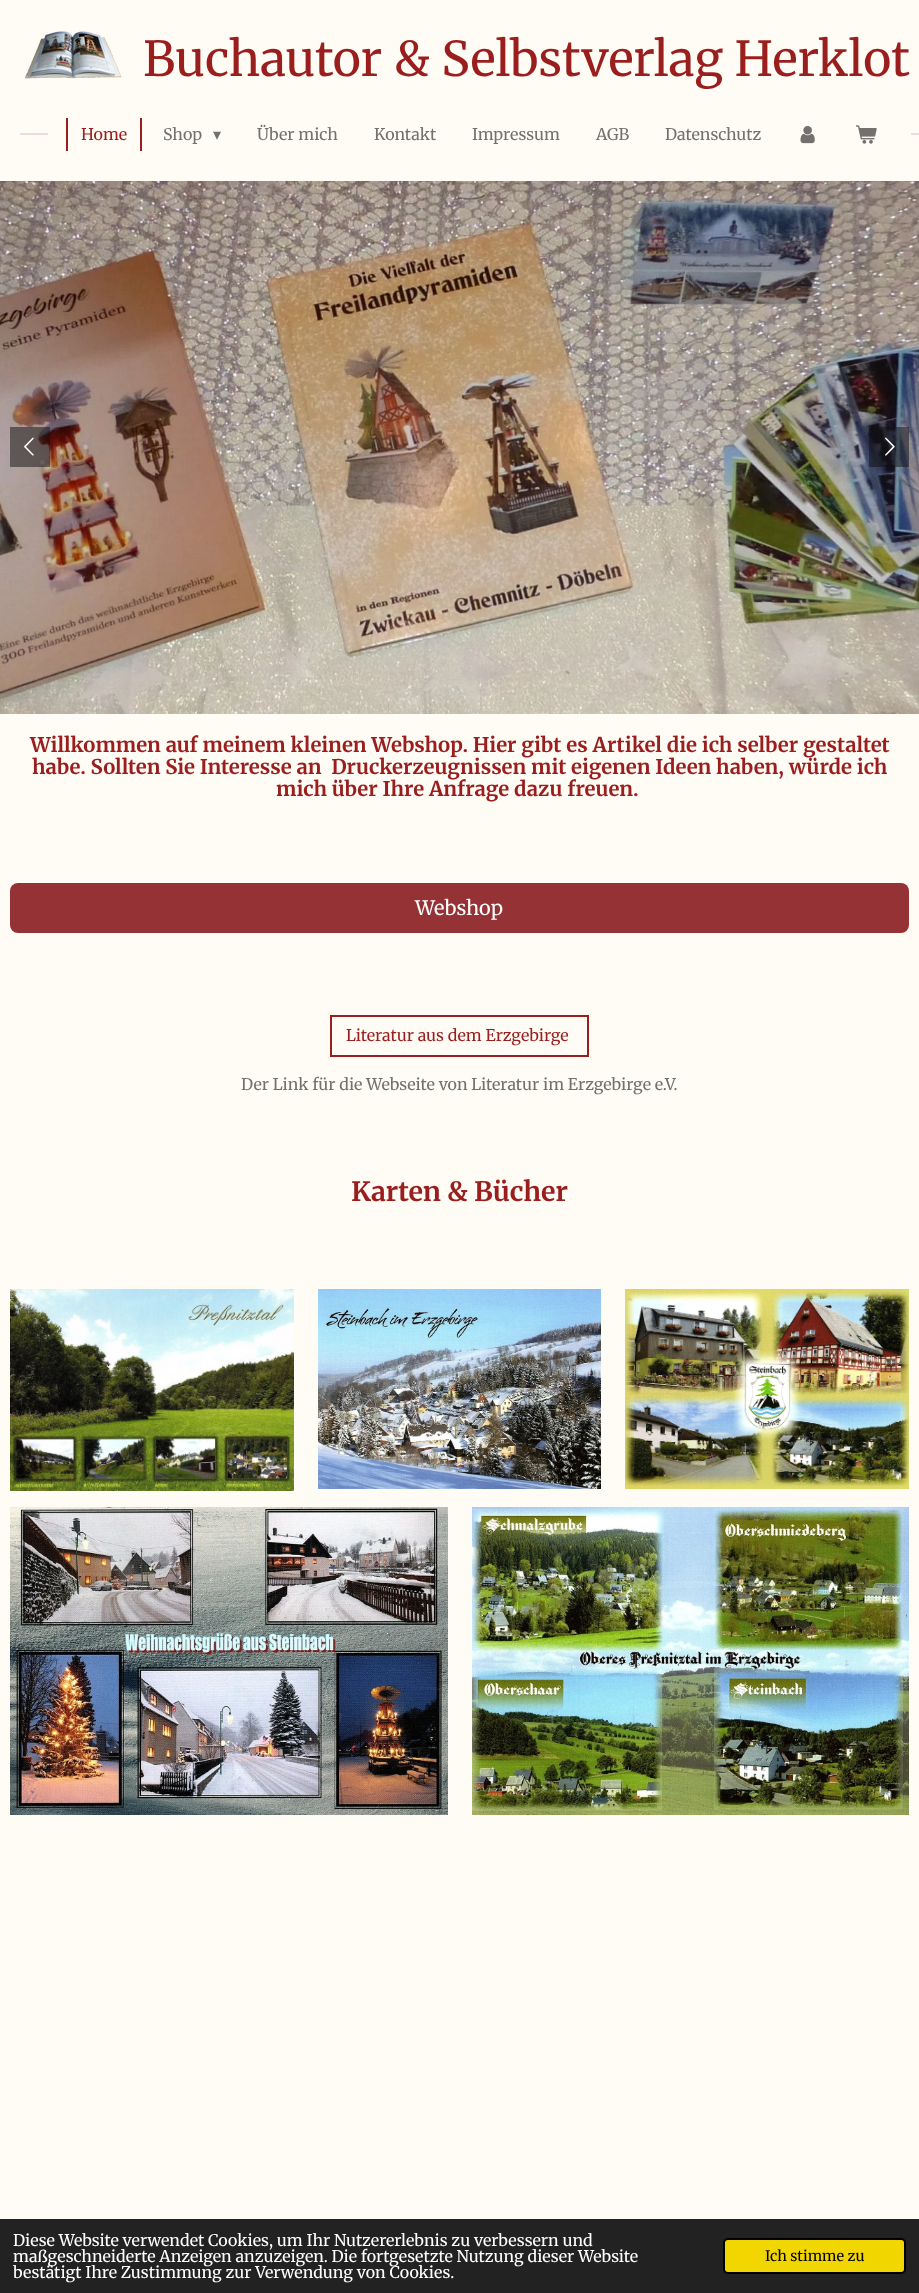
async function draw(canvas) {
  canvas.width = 919;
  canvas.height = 2293;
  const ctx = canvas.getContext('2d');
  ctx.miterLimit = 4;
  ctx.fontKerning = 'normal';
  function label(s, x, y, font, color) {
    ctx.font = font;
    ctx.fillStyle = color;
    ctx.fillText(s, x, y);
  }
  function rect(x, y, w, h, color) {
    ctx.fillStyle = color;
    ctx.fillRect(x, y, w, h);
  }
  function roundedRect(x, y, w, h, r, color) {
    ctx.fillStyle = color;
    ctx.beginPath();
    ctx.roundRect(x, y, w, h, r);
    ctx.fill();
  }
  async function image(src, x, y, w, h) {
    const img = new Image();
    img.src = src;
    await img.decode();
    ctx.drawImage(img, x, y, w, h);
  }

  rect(0, 0, 919, 2293, '#fffcf5');
  await image('assets/img1.png', 25, 31, 97, 48);
  label('Buchautor & Selbstverlag Herklot', 143, 76, '48px Merriweather', '#9a1e1e');
  rect(20, 133, 28, 2, '#f0dbd5');
  rect(140, 118, 2, 33, '#9a1e1e');
  rect(66, 118, 2, 33, '#9a1e1e');
  label('Home', 81, 140, '16px Merriweather', '#9a1e1e');
  label('Shop', 163, 140, '16px Merriweather', '#73716e');
  label('▾', 213, 140, '16px DejaVu Sans', '#73716e');
  label('Über mich', 257, 140, '16px Merriweather', '#73716e');
  label('Kontakt', 374, 140, '16px Merriweather', '#73716e');
  label('Impressum', 472, 140, '16px Merriweather', '#73716e');
  label('AGB', 596, 140, '16px Merriweather', '#73716e');
  label('Datenschutz', 665, 140, '16px Merriweather', '#73716e');
  await image('assets/img2.png', 800, 126, 15, 18);
  await image('assets/img3.png', 855, 125, 22, 19);
  rect(911, 133, 8, 2, '#f0dbd5');
  await image('assets/img4.png', 0, 181, 919, 533);
  rect(10, 427, 40, 40, '#0f0f0f80');
  await image('assets/img5.png', 24, 437, 10, 19);
  rect(869, 427, 40, 40, '#0f0f0f80');
  await image('assets/img6.png', 885, 437, 10, 19);
  label('Willkommen auf meinem kleinen Webshop. Hier gibt es Artikel die ich selber gestaltet', 30, 752, 'bold 20.3px Merriweather', '#9a1e1e');
  label('habe. Sollten Sie Interesse an  Druckerzeugnissen mit eigenen Ideen haben, würde ich', 32, 774, 'bold 20.3px Merriweather', '#9a1e1e');
  label('mich über Ihre Anfrage dazu freuen.', 276, 796, 'bold 20.3px Merriweather', '#9a1e1e');
  roundedRect(10, 883, 899, 50, 8, '#953235');
  label('Webshop', 415, 915, '20px Merriweather', '#fff');
  ctx.strokeStyle = '#9a1e1e';
  ctx.lineWidth = 2;
  ctx.strokeRect(331, 1016, 257, 40);
  label('Literatur aus dem Erzgebirge', 346, 1041, '16px Merriweather', '#9a1e1e');
  label('Der Link für die Webseite von Literatur im Erzgebirge e.V.', 241, 1090, '16px Merriweather', '#73716e');
  label('Karten & Bücher', 351, 1201, 'bold 26.75px Merriweather', '#9a1e1e');
  await image('assets/img7.png', 10, 1289, 284, 202);
  await image('assets/img8.png', 318, 1289, 283, 200);
  await image('assets/img9.png', 625, 1289, 284, 200);
  await image('assets/img10.png', 10, 1507, 438, 308);
  await image('assets/img11.png', 472, 1507, 437, 308);
  rect(0, 2219, 919, 74, '#222');
  label('Diese Website verwendet Cookies, um Ihr Nutzererlebnis zu verbessern und', 13, 2246, '16px Merriweather', '#fff');
  label('maßgeschneiderte Anzeigen anzuzeigen. Die fortgesetzte Nutzung dieser Website', 13, 2262, '16px Merriweather', '#fff');
  label('bestätigt Ihre Zustimmung zur Verwendung von Cookies.', 13, 2278, '16px Merriweather', '#fff');
  ctx.fillStyle = '#f1d600';
  ctx.beginPath();
  ctx.roundRect(724, 2239, 181, 34, 4);
  ctx.fill();
  ctx.strokeStyle = '#000';
  ctx.stroke();
  label('Ich stimme zu', 765, 2261, '14.5px Merriweather', '#000');
}

draw(document.querySelector('canvas'));
